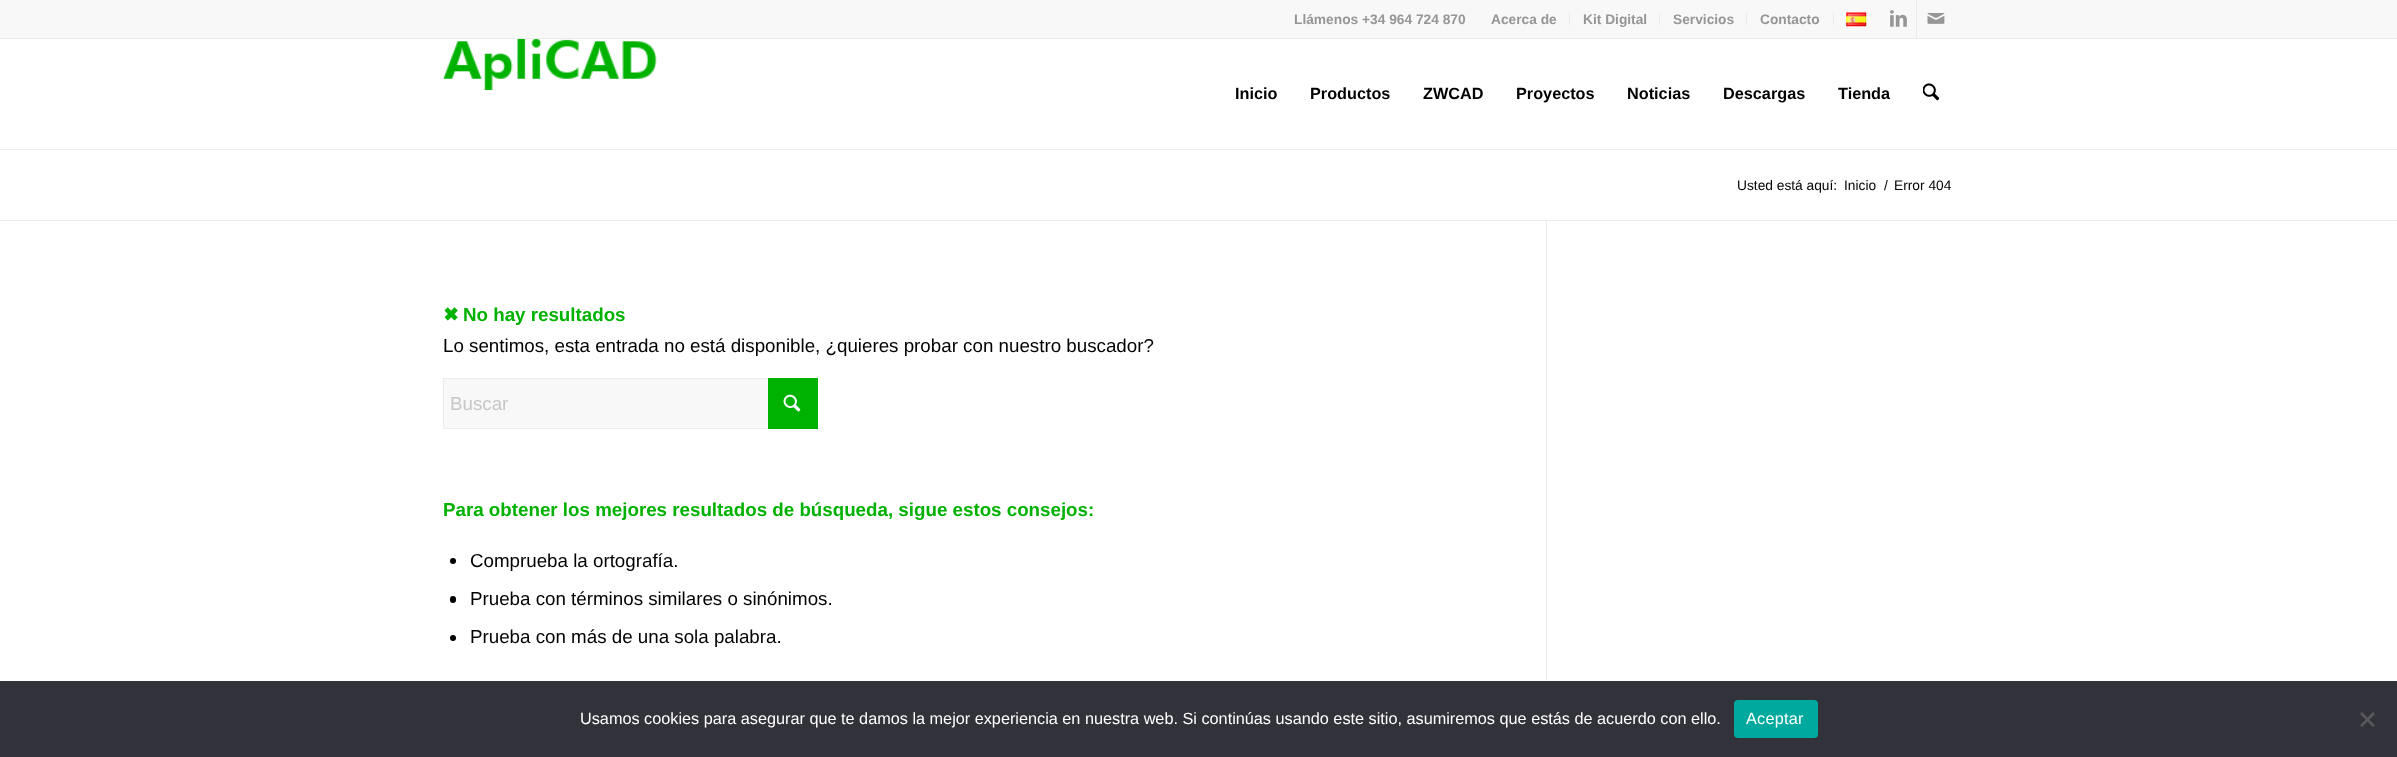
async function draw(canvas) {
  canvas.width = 2397;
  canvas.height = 757;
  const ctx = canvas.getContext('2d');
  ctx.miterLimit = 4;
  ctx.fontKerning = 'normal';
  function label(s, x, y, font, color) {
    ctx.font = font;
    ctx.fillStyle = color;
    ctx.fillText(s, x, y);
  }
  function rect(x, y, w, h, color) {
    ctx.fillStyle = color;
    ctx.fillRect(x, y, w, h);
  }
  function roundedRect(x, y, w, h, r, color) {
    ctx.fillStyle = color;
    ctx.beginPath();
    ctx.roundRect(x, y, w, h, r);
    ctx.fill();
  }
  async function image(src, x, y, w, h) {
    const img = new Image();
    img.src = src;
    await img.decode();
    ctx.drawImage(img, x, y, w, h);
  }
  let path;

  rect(0, 0, 2397, 757, '#fff');
  rect(0, 0, 2397, 38, '#f8f8f8');
  rect(0, 38, 2397, 1, '#ebebeb');
  label('Llámenos +34 964 724 870', 1294, 24, 'bold 13.75px Liberation Sans', '#969696');
  rect(1569, 13, 1, 12, '#ebebeb');
  label('Acerca de', 1491, 24, 'bold 13.75px Liberation Sans', '#969696');
  rect(1659, 13, 1, 12, '#ebebeb');
  label('Kit Digital', 1583, 24, 'bold 13.75px Liberation Sans', '#969696');
  rect(1746, 13, 1, 12, '#ebebeb');
  label('Servicios', 1673, 24, 'bold 13.75px Liberation Sans', '#969696');
  rect(1833, 13, 1, 12, '#ebebeb');
  label('Contacto', 1760, 24, 'bold 13.75px Liberation Sans', '#969696');
  await image('assets/img1.png', 1846, 12, 21, 15);
  rect(1916, 0, 1, 38, '#ebebeb');
  await image('assets/img2.png', 1890, 10, 17, 17);
  await image('assets/img3.png', 1927, 13, 18, 11);
  rect(0, 149, 2397, 1, '#ebebeb');
  await image('assets/img4.png', 443, 39, 214, 51);
  label('Inicio', 1235, 99, 'bold 16.25px Liberation Sans', '#000');
  label('Productos', 1310, 99, 'bold 16.25px Liberation Sans', '#000');
  label('ZWCAD', 1423, 99, 'bold 16.25px Liberation Sans', '#000');
  label('Proyectos', 1516, 99, 'bold 16.25px Liberation Sans', '#000');
  label('Noticias', 1627, 99, 'bold 16.25px Liberation Sans', '#000');
  label('Descargas', 1723, 99, 'bold 16.25px Liberation Sans', '#000');
  label('Tienda', 1838, 99, 'bold 16.25px Liberation Sans', '#000');
  await image('assets/img5.png', 1923, 83, 16, 18);
  label('Usted está aquí:', 1737, 190, '13.75px Liberation Sans', '#000');
  label('Inicio', 1844, 190, '13.75px Liberation Sans', '#000');
  label('/', 1884, 190, '13.75px Liberation Sans', '#000');
  label('Error 404', 1894, 190, '13.75px Liberation Sans', '#000');
  rect(0, 220, 2397, 1, '#ebebeb');
  rect(1546, 221, 1, 460, '#ebebeb');
  label('✖', 443, 321, 'bold 18.75px DejaVu Sans', '#00b200');
  label('No hay resultados', 463, 321, 'bold 18.75px Liberation Sans', '#00b200');
  label('Lo sentimos, esta entrada no está disponible, ¿quieres probar con nuestro buscador?', 443, 352, '18.75px Liberation Sans', '#000');
  rect(444, 379, 324, 49, '#f8f8f8');
  ctx.strokeStyle = '#ebebeb';
  ctx.strokeRect(443.5, 378.5, 374, 50);
  rect(768, 378, 50, 51, '#00b200');
  label('Buscar', 450, 410, '18.75px Liberation Sans', '#c7c7c7');
  await image('assets/img6.png', 783, 394, 18, 18);
  label('Para obtener los mejores resultados de búsqueda, sigue estos consejos:', 443, 516, 'bold 18.75px Liberation Sans', '#00b200');
  ctx.fillStyle = '#000';
  ctx.beginPath();
  ctx.arc(453, 561, 3, 0, 2 * Math.PI);
  ctx.fill();
  label('Comprueba la ortografía.', 470, 567, '18.75px Liberation Sans', '#000');
  roundedRect(450, 596, 6, 7, 3, '#000');
  label('Prueba con términos similares o sinónimos.', 470, 605, '18.75px Liberation Sans', '#000');
  ctx.beginPath();
  ctx.arc(453, 638, 3, 0, 2 * Math.PI);
  ctx.fill();
  label('Prueba con más de una sola palabra.', 470, 643, '18.75px Liberation Sans', '#000');
  rect(0, 681, 2397, 76, '#32323a');
  label('Usamos cookies para asegurar que te damos la mejor experiencia en nuestra web. Si continúas usando este sitio, asumiremos que estás de acuerdo con ello.', 580, 724, '16.25px Liberation Sans', '#fff');
  roundedRect(1734, 700, 84, 38, 4, '#00a99d');
  ctx.letterSpacing = '0.25px';
  label('Aceptar', 1746, 724, '16.25px Liberation Sans', '#fff');
  ctx.fillStyle = '#59595d';
  path = new Path2D('M2373 712L2375 714L2362 727L2360 725.5Z');
  ctx.fill(path);
  path = new Path2D('M2360 714L2362 712L2375 725.5L2373 727Z');
  ctx.fill(path);
}

draw(document.querySelector('canvas'));
